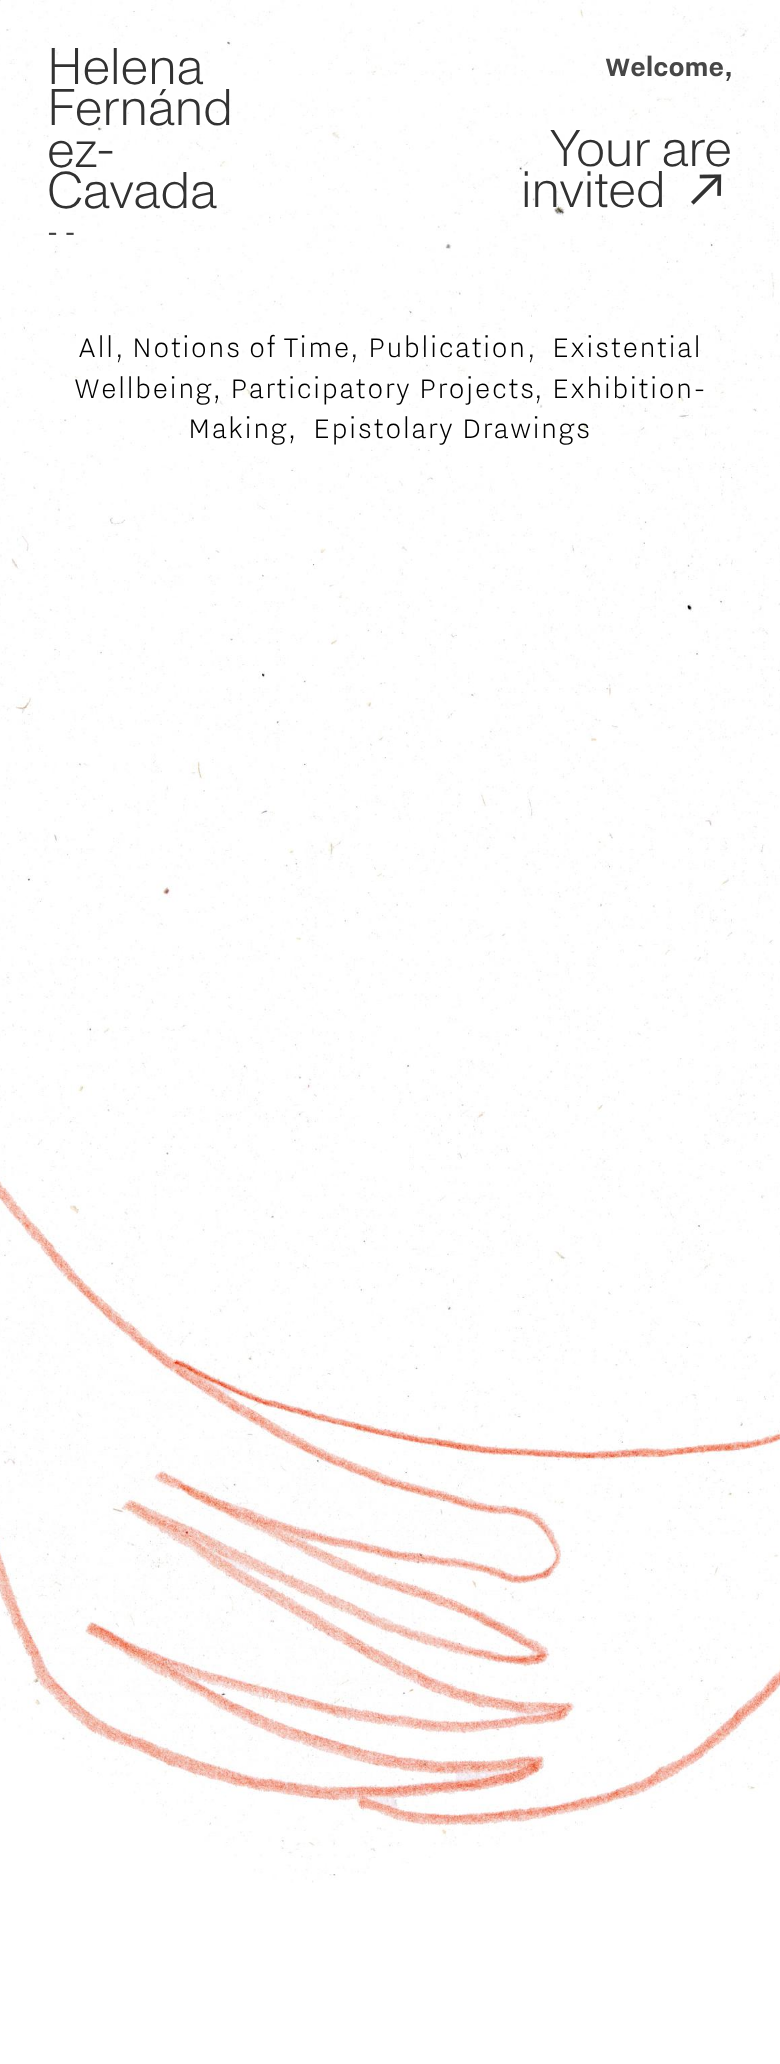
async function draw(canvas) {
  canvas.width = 780;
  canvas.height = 2064;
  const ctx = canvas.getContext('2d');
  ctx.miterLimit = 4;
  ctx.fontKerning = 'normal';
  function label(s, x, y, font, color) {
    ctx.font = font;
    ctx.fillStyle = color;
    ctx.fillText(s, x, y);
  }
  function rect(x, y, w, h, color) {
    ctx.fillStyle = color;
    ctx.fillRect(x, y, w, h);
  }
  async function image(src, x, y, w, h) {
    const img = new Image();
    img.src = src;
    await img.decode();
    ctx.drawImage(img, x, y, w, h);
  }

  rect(0, 0, 780, 2064, '#fff');
  await image('assets/img1.png', 0, 0, 780, 1883);
  label('Helena', 47, 84, '300 51.5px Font', '#323232');
  label('Fernánd', 47, 125, '300 51.5px Font', '#323232');
  label('ez-', 47, 167, '300 51.5px Font', '#323232');
  label('Cavada', 47, 208, '300 51.5px Font', '#323232');
  label('- -', 47, 241, '31.5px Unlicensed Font', '#404040');
  label('Welcome', 605, 76, 'bold 31.5px Unlicensed Font', '#474747');
  label(',', 724, 76, 'bold 31.5px Unlicensed Font', '#404040');
  label('Your are', 550, 166, '300 51.5px Font', '#323232');
  label('invited', 521, 207, '300 51.5px Font', '#323232');
  await image('assets/img2.png', 691, 174, 31, 31);
  ctx.letterSpacing = '1.35px';
  label('All', 78, 357, '300 33.75px "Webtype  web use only"', '#000');
  label(',', 115, 357, '300 33.75px "Webtype  web use only"', '#0f0f0f');
  label('Notions of Time', 132, 357, '300 33.75px "Webtype  web use only"', '#000');
  label(',', 350, 357, '300 33.75px "Webtype  web use only"', '#0f0f0f');
  label('Publication', 368, 357, '300 33.75px "Webtype  web use only"', '#000');
  label(',', 527, 357, '300 33.75px "Webtype  web use only"', '#0f0f0f');
  label('Existential', 552, 357, '300 33.75px "Webtype  web use only"', '#000');
  label('Wellbeing, Participatory Projects', 74, 398, '300 33.75px "Webtype  web use only"', '#000');
  label(',', 534, 398, '300 33.75px "Webtype  web use only"', '#0f0f0f');
  label('Exhibition-', 552, 398, '300 33.75px "Webtype  web use only"', '#000');
  label('Making,', 188, 438, '300 33.75px "Webtype  web use only"', '#000');
  label('Epistolary Drawings', 313, 438, '300 33.75px "Webtype  web use only"', '#000');
}

draw(document.querySelector('canvas'));
